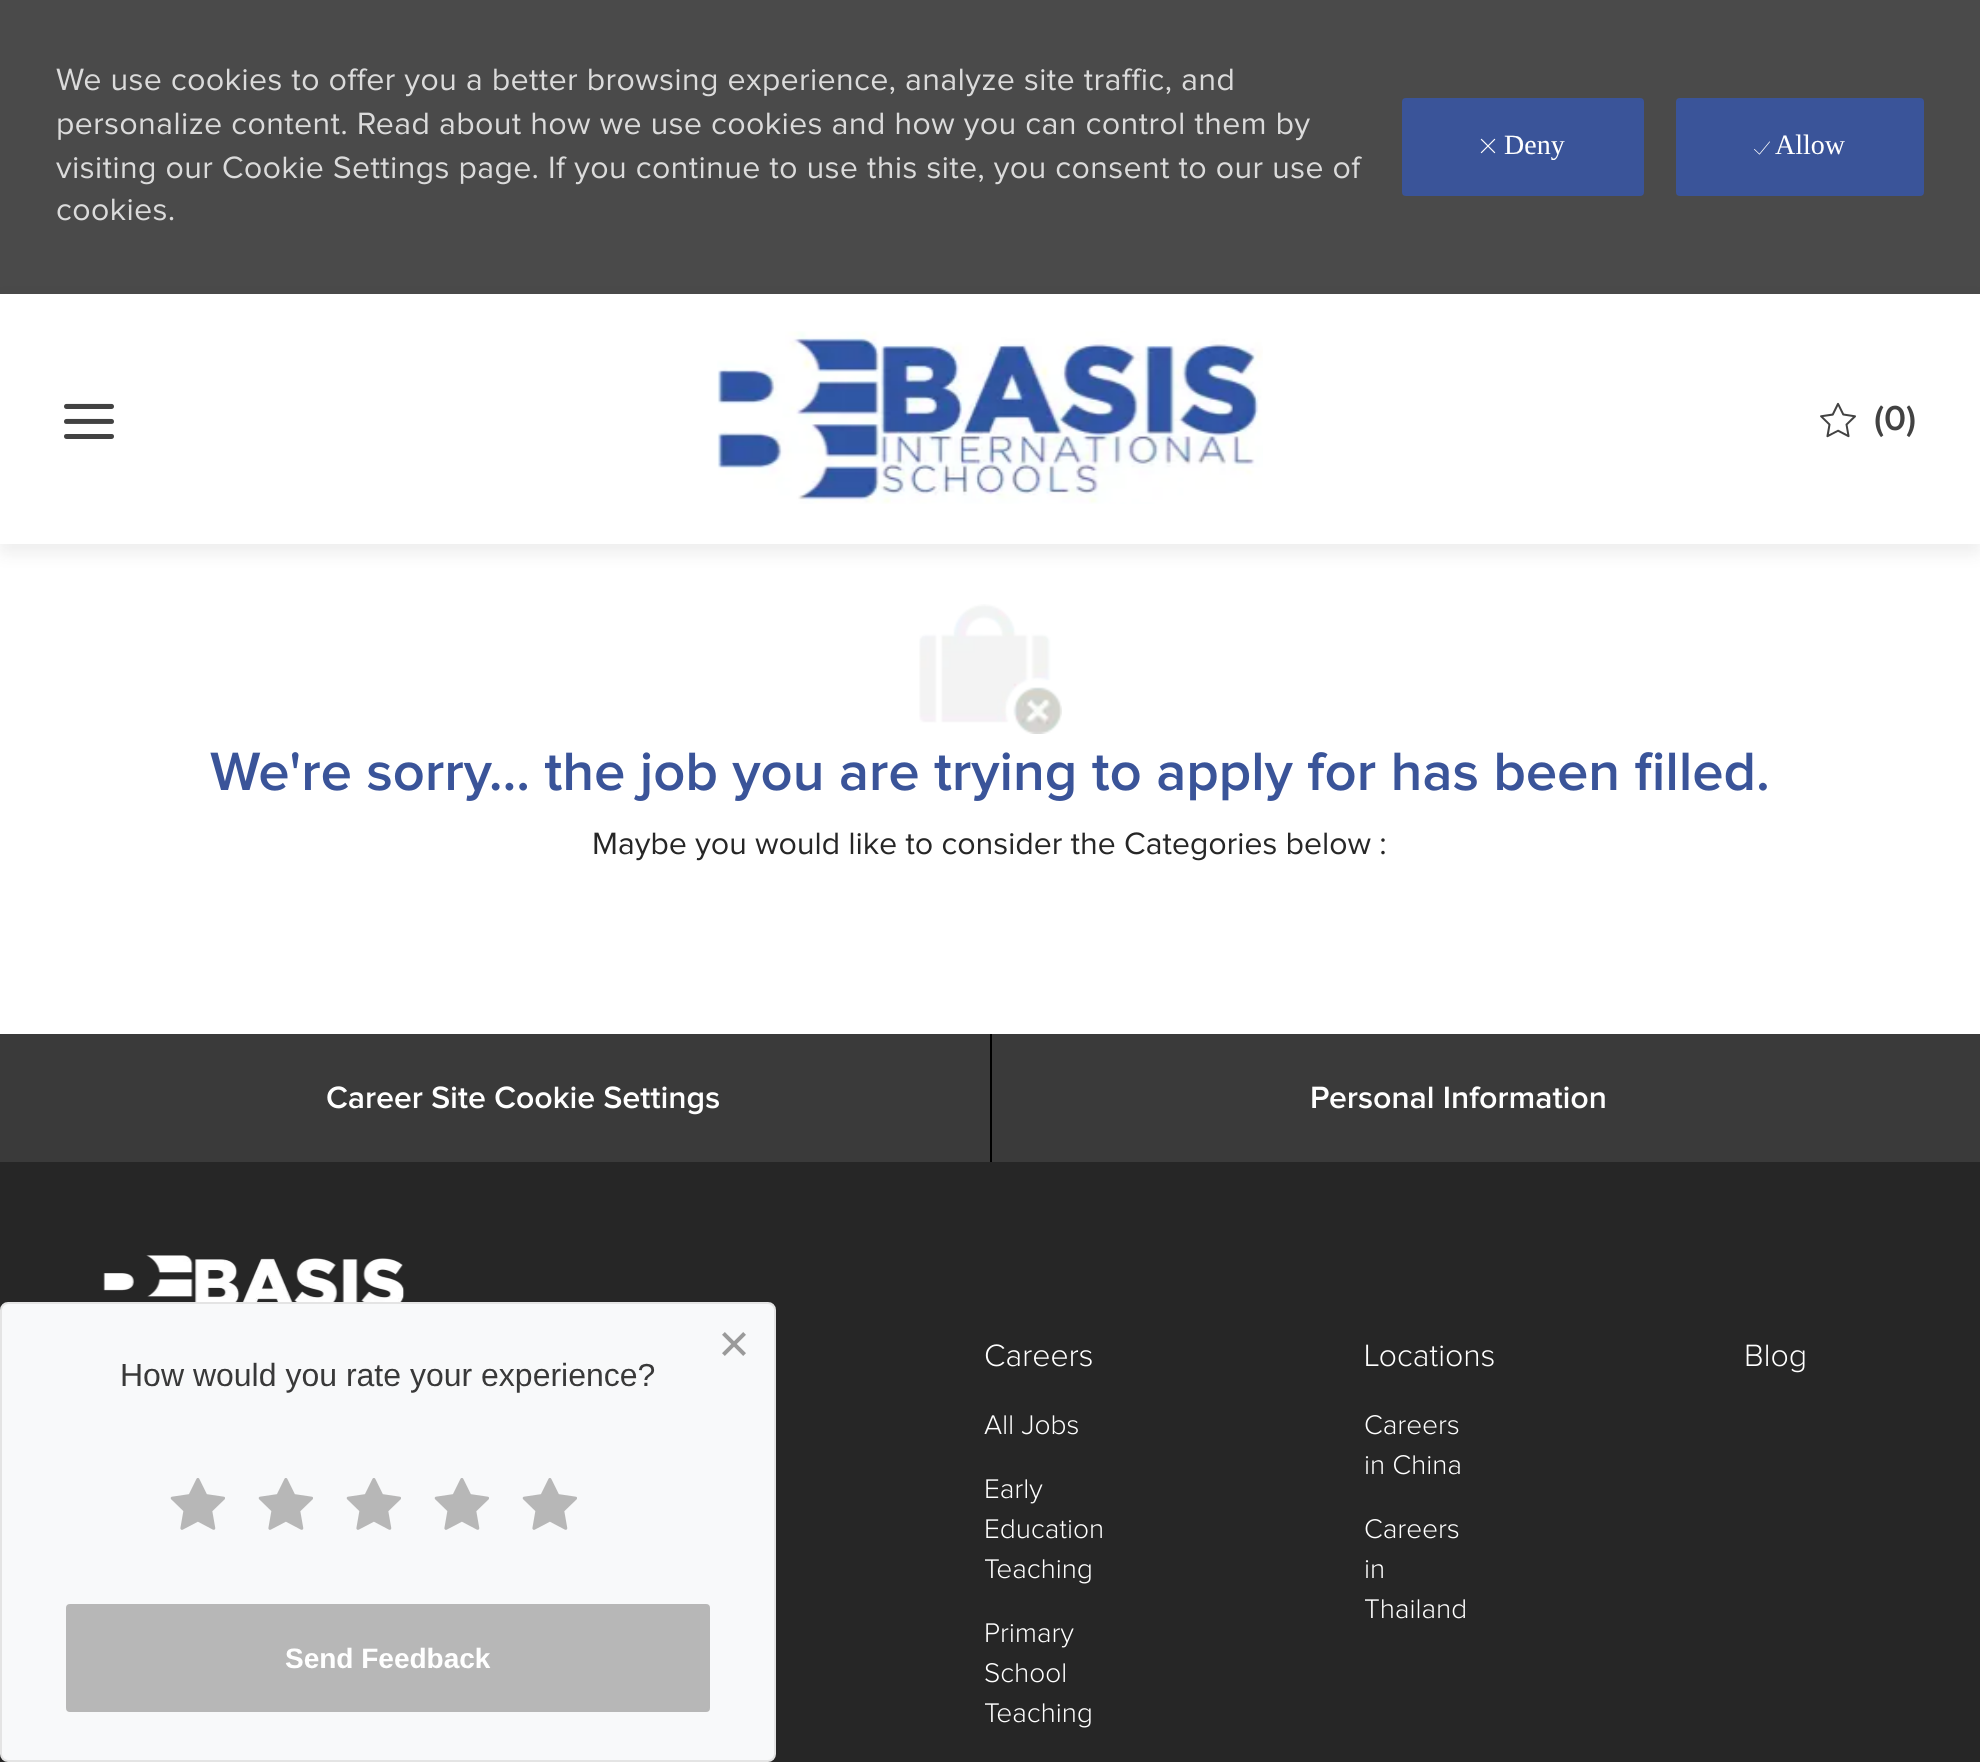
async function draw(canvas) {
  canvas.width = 1980;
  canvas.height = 1762;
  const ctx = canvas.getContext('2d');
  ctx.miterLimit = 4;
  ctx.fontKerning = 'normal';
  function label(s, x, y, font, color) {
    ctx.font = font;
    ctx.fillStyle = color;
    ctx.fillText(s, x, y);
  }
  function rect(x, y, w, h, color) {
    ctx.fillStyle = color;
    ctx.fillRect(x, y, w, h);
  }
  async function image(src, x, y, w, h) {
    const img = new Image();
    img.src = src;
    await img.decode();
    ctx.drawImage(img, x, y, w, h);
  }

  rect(0, 0, 1980, 1762, '#fff');
  rect(0, 0, 1980, 294, '#4a4a4a');
  await image('assets/img1.png', 56, 68, 1177, 29);
  await image('assets/img2.png', 58, 112, 1252, 29);
  await image('assets/img3.png', 56, 156, 1306, 29);
  await image('assets/img4.png', 57, 198, 117, 23);
  ctx.fillStyle = '#3a5499';
  ctx.beginPath();
  ctx.roundRect(1403, 99, 240, 96, 3);
  ctx.fill();
  ctx.strokeStyle = '#3a5499';
  ctx.lineWidth = 2;
  ctx.stroke();
  await image('assets/img5.png', 1480, 138, 16, 16);
  label('Deny', 1504, 154, '28px Liberation Serif', '#fff');
  ctx.fillStyle = '#3a5499';
  ctx.beginPath();
  ctx.roundRect(1677, 99, 246, 96, 3);
  ctx.fill();
  ctx.stroke();
  await image('assets/img6.png', 1754, 141, 16, 14);
  label('Allow', 1775, 154, '28px Liberation Serif', '#fff');
  ctx.fillStyle = '#22242b14';
  ctx.filter = 'blur(8px)';
  ctx.beginPath();
  ctx.rect(-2, 300, 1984, 254);
  ctx.fill();
  ctx.filter = 'none';
  rect(0, 294, 1980, 250, '#fff');
  await image('assets/img7.png', 64, 403, 50, 36);
  await image('assets/img8.png', 717, 331, 546, 173);
  await image('assets/img9.png', 1820, 402, 36, 36);
  await image('assets/img10.png', 1875, 405, 40, 33);
  rect(0, 1162, 1980, 600, '#262626');
  rect(0, 1034, 1980, 128, '#3a3a3a');
  await image('assets/img11.png', 327, 1086, 392, 29);
  rect(990, 1034, 2, 128, '#000');
  await image('assets/img12.png', 1312, 1086, 293, 23);
  await image('assets/img13.png', 103, 1255, 302, 47);
  await image('assets/img14.png', 985, 1344, 107, 23);
  await image('assets/img15.png', 984, 1415, 94, 20);
  await image('assets/img16.png', 986, 1479, 57, 25);
  await image('assets/img17.png', 986, 1519, 116, 20);
  await image('assets/img18.png', 985, 1559, 106, 25);
  await image('assets/img19.png', 986, 1623, 88, 25);
  await image('assets/img20.png', 985, 1663, 80, 20);
  await image('assets/img18.png', 985, 1703, 106, 25);
  await image('assets/img21.png', 1366, 1344, 128, 23);
  await image('assets/img22.png', 1365, 1415, 94, 20);
  await image('assets/img23.png', 1365, 1455, 95, 20);
  await image('assets/img22.png', 1365, 1519, 94, 20);
  await image('assets/img24.png', 1365, 1560, 18, 18);
  await image('assets/img25.png', 1365, 1599, 100, 20);
  await image('assets/img26.png', 1746, 1344, 59, 29);
  await image('assets/img27.png', 919, 604, 143, 130);
  await image('assets/img28.png', 210, 752, 1557, 49);
  await image('assets/img29.png', 594, 832, 791, 29);
  ctx.fillStyle = '#f8f9fa';
  ctx.beginPath();
  ctx.roundRect(1, 1303, 774, 458, 7);
  ctx.fill();
  ctx.strokeStyle = '#e4e4e4';
  ctx.stroke();
  await image('assets/img30.png', 722, 1332, 24, 24);
  label('How would you rate your experience?', 120, 1386, '32px Liberation Sans', '#393939');
  await image('assets/img31.png', 170, 1478, 55, 52);
  await image('assets/img31.png', 258, 1478, 55, 52);
  await image('assets/img31.png', 346, 1478, 55, 52);
  await image('assets/img31.png', 434, 1478, 55, 52);
  await image('assets/img31.png', 522, 1478, 55, 52);
  ctx.fillStyle = '#b7b7b7';
  ctx.beginPath();
  ctx.roundRect(67, 1605, 642, 106, 3);
  ctx.fill();
  ctx.strokeStyle = '#b7b7b7';
  ctx.stroke();
  label('Send Feedback', 285, 1668, 'bold 28px Liberation Sans', '#fff');
}

draw(document.querySelector('canvas'));
